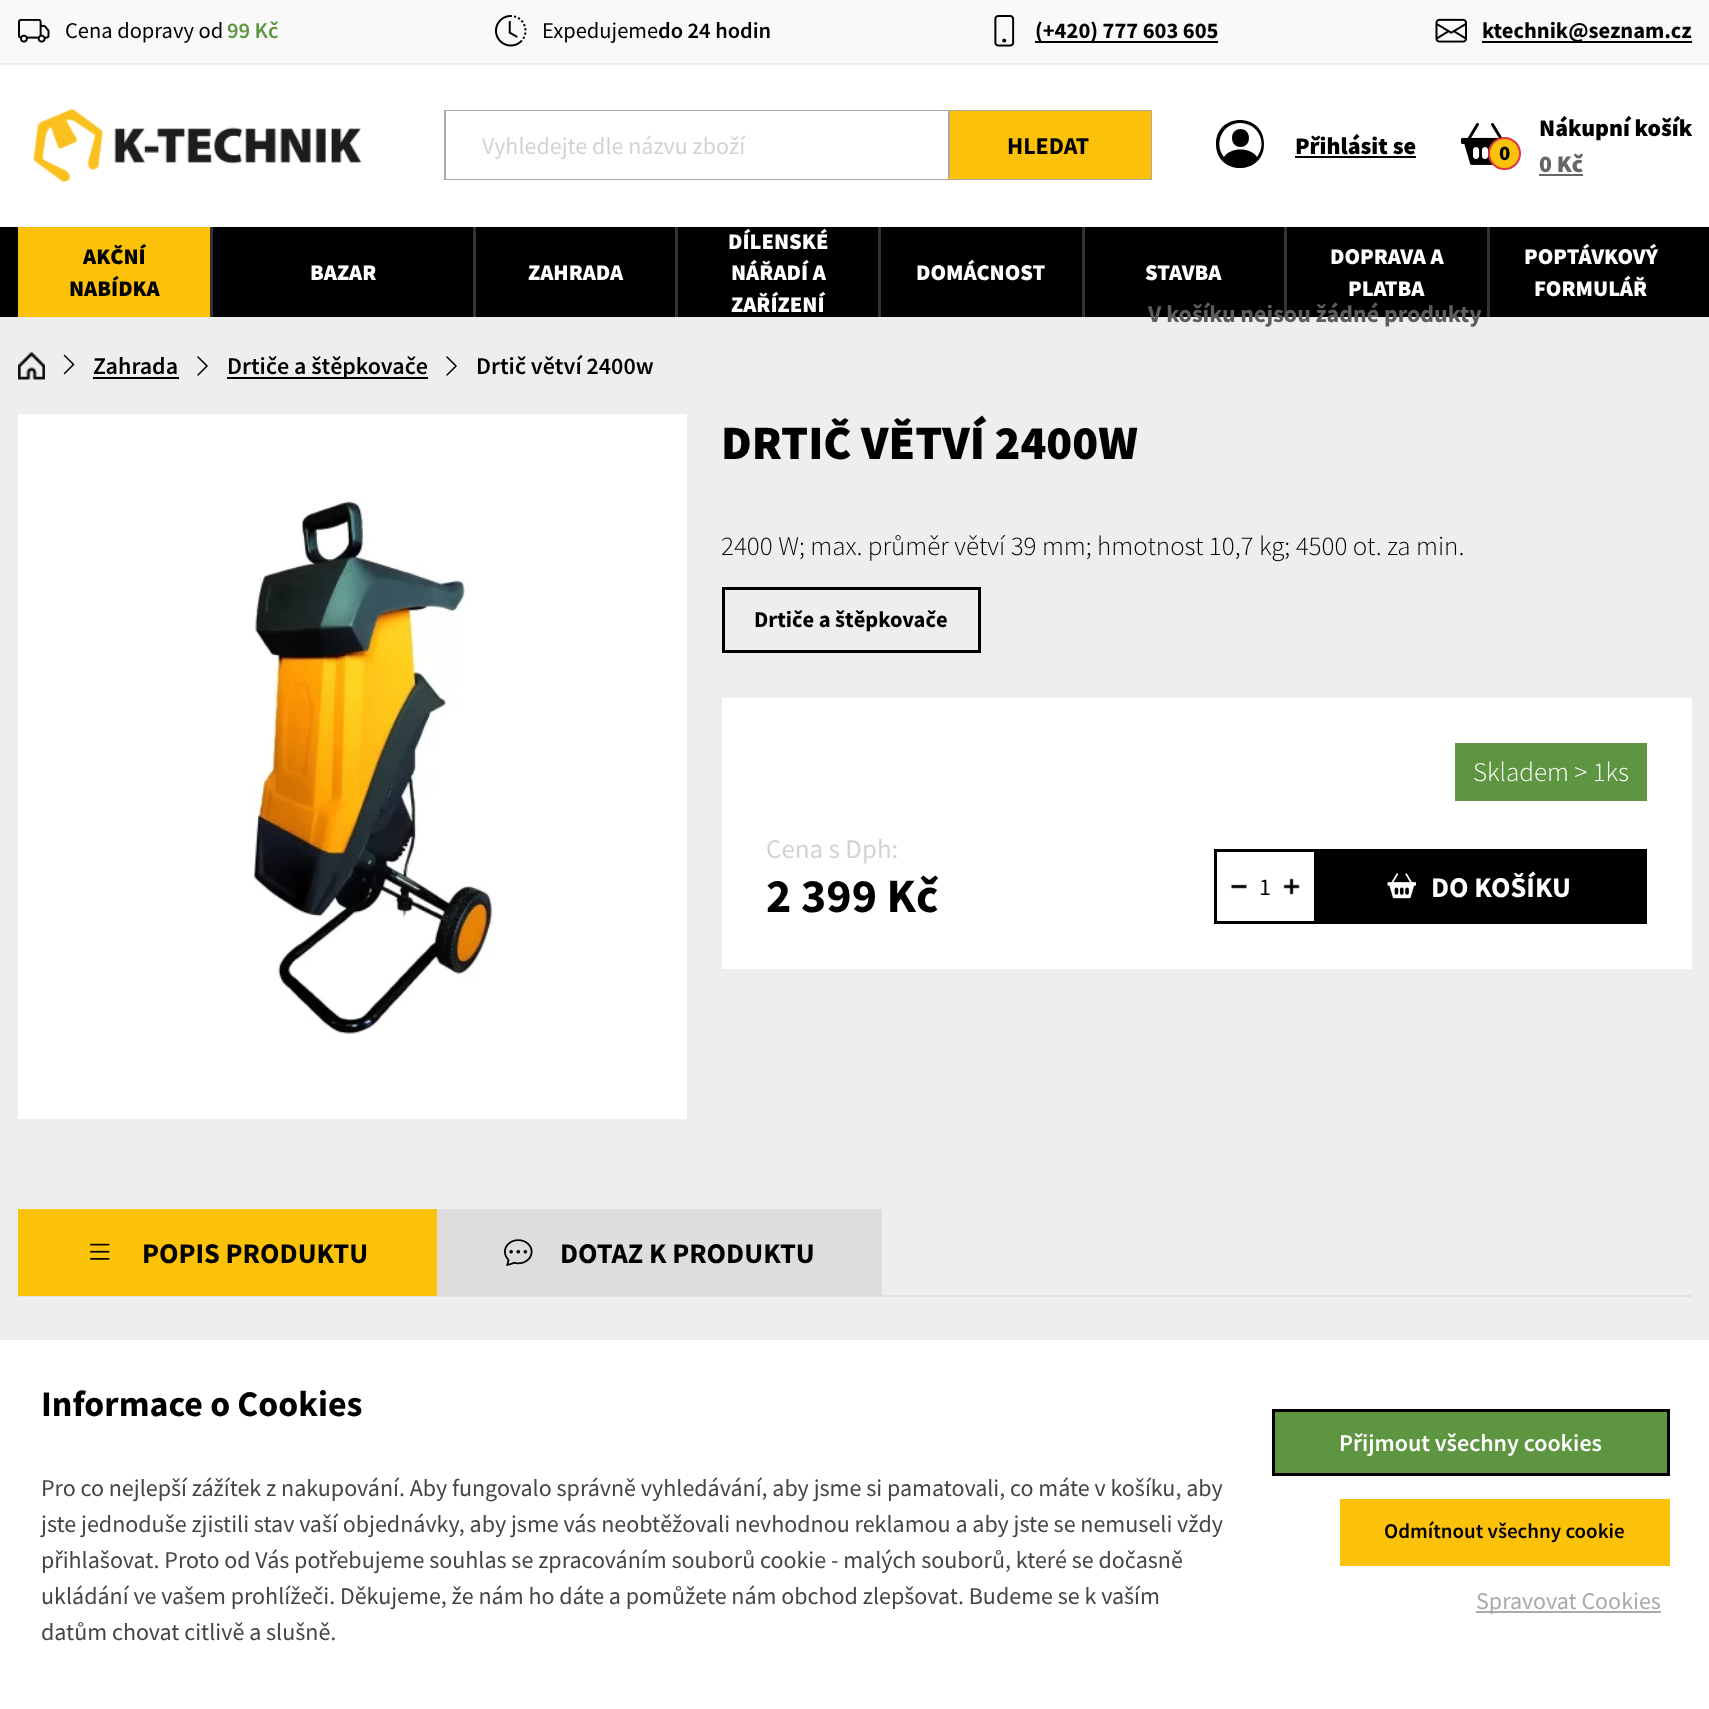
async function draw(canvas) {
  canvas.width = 1709;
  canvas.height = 1709;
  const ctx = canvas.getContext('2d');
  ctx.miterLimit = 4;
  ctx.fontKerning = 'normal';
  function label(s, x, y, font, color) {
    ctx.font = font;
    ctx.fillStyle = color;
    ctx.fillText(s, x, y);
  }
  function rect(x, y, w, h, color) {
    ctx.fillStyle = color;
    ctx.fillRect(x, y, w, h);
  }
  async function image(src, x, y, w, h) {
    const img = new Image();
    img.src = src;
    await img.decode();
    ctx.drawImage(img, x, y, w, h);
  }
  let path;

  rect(0, 0, 1709, 1709, '#eee');
  rect(0, 0, 1709, 63, '#f9f9f9');
  await image('assets/img1.png', 18, 19, 32, 24);
  label('Cena dopravy od', 65, 38, '22.5px Source Sans Pro', '#000');
  label('99 Kč', 227, 38, '600 22.5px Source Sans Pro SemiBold', '#5e9540');
  await image('assets/img2.png', 494, 15, 33, 32);
  label('Expedujeme', 542, 38, '22.5px Source Sans Pro', '#000');
  label('do 24 hodin', 658, 38, '600 22.5px Source Sans Pro SemiBold', '#000');
  await image('assets/img3.png', 994, 15, 21, 32);
  rect(1035, 41, 183, 2, '#000');
  label('(+420) 777 603 605', 1035, 38, 'bold 22.5px Source Sans Pro', '#000');
  await image('assets/img4.png', 1435, 18, 32, 25);
  rect(1482, 41, 210, 2, '#000');
  label('ktechnik@seznam.cz', 1482, 38, 'bold 22.5px Source Sans Pro', '#000');
  rect(0, 65, 1709, 162, '#fff');
  await image('assets/img5.png', 33, 109, 329, 73);
  ctx.strokeStyle = '#a9a9a9';
  ctx.lineWidth = 2;
  ctx.strokeRect(445, 111, 706, 68);
  rect(446, 111, 502, 68, '#fff');
  label('Vyhledejte dle názvu zboží', 482, 154, '24px Source Sans Pro', '#d3d3d3');
  rect(948, 111, 203, 68, '#fcc209');
  ctx.fillStyle = '#a9a9a9';
  path = new Path2D('M948 178V111L950 112V177Z');
  ctx.fill(path);
  label('HLEDAT', 1007, 154, 'bold 24px Source Sans Pro', '#000');
  await image('assets/img6.png', 1461, 123, 47, 42);
  ctx.fillStyle = '#fcc209';
  ctx.beginPath();
  ctx.arc(1504.5, 153.5, 15.5, 0, 2 * Math.PI);
  ctx.fill();
  ctx.strokeStyle = '#dc3545';
  ctx.stroke();
  label('0', 1499, 160, '900 21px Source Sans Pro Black', '#000');
  label('Nákupní košík', 1539, 136, '900 24px Source Sans Pro Black', '#000');
  label('0 Kč', 1539, 172, '900 24px Source Sans Pro Black', '#666');
  rect(1539, 174, 44, 2, '#666');
  rect(0, 227, 1709, 90, '#000');
  rect(1284, 227, 3, 90, '#333');
  label('V košíku nejsou žádné produkty', 1148, 322, 'bold 24px Source Sans Pro', '#5d5d5d');
  ctx.fillStyle = '#000';
  path = new Path2D('M1249 138C1249 150 1232 150 1232 138C1232 126 1249 126 1249 138ZM1216 144C1216 112 1264 112 1264 144C1264 176 1216 176 1216 144ZM1240 123C1223 123 1213 143 1224 157C1230 147 1251 147 1257 157C1268 143 1258 123 1240 123Z');
  ctx.fill(path);
  label('Přihlásit se', 1295, 154, '900 24px Source Sans Pro Black', '#000');
  rect(1295, 156, 121, 2, '#000');
  rect(18, 227, 192, 90, '#fcc209');
  rect(210, 227, 3, 90, '#333');
  label('AKČNÍ', 83, 264, '900 22.5px Source Sans Pro Black', '#000');
  label('NABÍDKA', 69, 296, '900 22.5px Source Sans Pro Black', '#000');
  rect(473, 227, 3, 90, '#333');
  label('BAZAR', 310, 280, '900 22.5px Source Sans Pro Black', '#fff');
  rect(675, 227, 3, 90, '#333');
  label('ZAHRADA', 528, 280, '900 22.5px Source Sans Pro Black', '#fff');
  rect(878, 227, 3, 90, '#333');
  label('DÍLENSKÉ', 728, 249, '900 22.5px Source Sans Pro Black', '#fff');
  label('NÁŘADÍ A', 731, 280, '900 22.5px Source Sans Pro Black', '#fff');
  label('ZAŘÍZENÍ', 731, 312, '900 22.5px Source Sans Pro Black', '#fff');
  rect(1082, 227, 3, 90, '#333');
  label('DOMÁCNOST', 916, 280, '900 22.5px Source Sans Pro Black', '#fff');
  label('STAVBA', 1145, 280, '900 22.5px Source Sans Pro Black', '#fff');
  rect(1487, 227, 3, 90, '#333');
  label('DOPRAVA A', 1330, 264, '900 22.5px Source Sans Pro Black', '#fff');
  label('PLATBA', 1348, 296, '900 22.5px Source Sans Pro Black', '#fff');
  label('POPTÁVKOVÝ', 1524, 264, '900 22.5px Source Sans Pro Black', '#fff');
  label('FORMULÁŘ', 1534, 296, '900 22.5px Source Sans Pro Black', '#fff');
  await image('assets/img7.png', 18, 352, 27, 28);
  await image('assets/img8.png', 63, 354, 12, 21);
  label('Zahrada', 93, 374, '600 24px Source Sans Pro SemiBold', '#000');
  rect(93, 377, 86, 2, '#000');
  await image('assets/img9.png', 197, 356, 11, 20);
  rect(227, 377, 201, 2, '#000');
  label('Drtiče a štěpkovače', 227, 374, '600 24px Source Sans Pro SemiBold', '#000');
  await image('assets/img9.png', 446, 356, 11, 20);
  label('Drtič větví 2400w', 476, 374, '600 24px Source Sans Pro SemiBold', '#000');
  rect(18, 414, 669, 705, '#fff');
  await image('assets/img10.png', 254, 498, 240, 536);
  label('DRTIČ VĚTVÍ 2400W', 721, 459, '900 48px Source Sans Pro Black', '#000');
  label('2400 W; max. průměr větví 39 mm; hmotnost 10,7 kg; 4500 ot. za min.', 721, 555, '300 27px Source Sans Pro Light', '#000');
  ctx.strokeStyle = '#000';
  ctx.lineWidth = 3;
  ctx.strokeRect(723.5, 588.5, 256, 63);
  label('Drtiče a štěpkovače', 754, 627, 'bold 22.5px Source Sans Pro', '#000');
  rect(722, 698, 970, 271, '#fff');
  rect(1455, 743, 192, 58, '#5e9540');
  label('Skladem > 1ks', 1473, 781, '300 27px Source Sans Pro Light', '#fff');
  label('Cena s Dph:', 766, 858, '27px Source Sans Pro', '#d3d3d3');
  label('2 399 Kč', 766, 912, 'bold 48px Source Sans Pro', '#000');
  ctx.strokeRect(1215.5, 850.5, 430, 72);
  await image('assets/img11.png', 1231, 884, 16, 5);
  label('1', 1259, 895, '24px Source Sans Pro', '#000');
  await image('assets/img12.png', 1283, 878, 17, 17);
  rect(1314, 852, 330, 69, '#000');
  await image('assets/img13.png', 1387, 873, 29, 26);
  label('DO KOŠÍKU', 1431, 897, 'bold 28.5px Source Sans Pro', '#fff');
  rect(18, 1295, 1674, 2, '#dee2e6');
  rect(18, 1209, 419, 87, '#fcc209');
  await image('assets/img14.png', 90, 1243, 20, 17);
  label('POPIS PRODUKTU', 142, 1263, 'bold 28.5px Source Sans Pro', '#000');
  rect(437, 1209, 445, 87, '#ddd');
  await image('assets/img15.png', 504, 1239, 29, 27);
  label('DOTAZ K PRODUKTU', 560, 1263, 'bold 28.5px Source Sans Pro', '#000');
  rect(0, 1340, 1709, 369, '#fff');
  label('Informace o Cookies', 41, 1416, 'bold 36px Source Sans Pro', '#000');
  label('Pro co nejlepší zážítek z nakupování. Aby fungovalo správně vyhledávání, aby jsme si pamatovali, co máte v košíku, aby', 41, 1496, '24px Source Sans Pro', '#464545');
  label('jste jednoduše zjistili stav vaší objednávky, aby jsme vás neobtěžovali nevhodnou reklamou a aby jste se nemuseli vždy', 41, 1532, '24px Source Sans Pro', '#464545');
  label('přihlašovat. Proto od Vás potřebujeme souhlas se zpracováním souborů cookie - malých souborů, které se dočasně', 41, 1568, '24px Source Sans Pro', '#464545');
  label('ukládání ve vašem prohlížeči. Děkujeme, že nám ho dáte a pomůžete nám obchod zlepšovat. Budeme se k vaším', 41, 1604, '24px Source Sans Pro', '#464545');
  label('datům chovat citlivě a slušně.', 41, 1640, '24px Source Sans Pro', '#464545');
  ctx.fillStyle = '#5e9540';
  ctx.beginPath();
  ctx.rect(1273.5, 1410.5, 395, 64);
  ctx.fill();
  ctx.stroke();
  label('Přijmout všechny cookies', 1339, 1451, '600 24px Source Sans Pro SemiBold', '#fff');
  rect(1340, 1499, 330, 67, '#fcc209');
  label('Odmítnout všechny cookie', 1384, 1538, '600 21px Source Sans Pro SemiBold', '#000');
  rect(1476, 1611, 185, 2, '#aaa');
  label('Spravovat Cookies', 1476, 1609, '24px Source Sans Pro', '#aaa');
}

draw(document.querySelector('canvas'));
